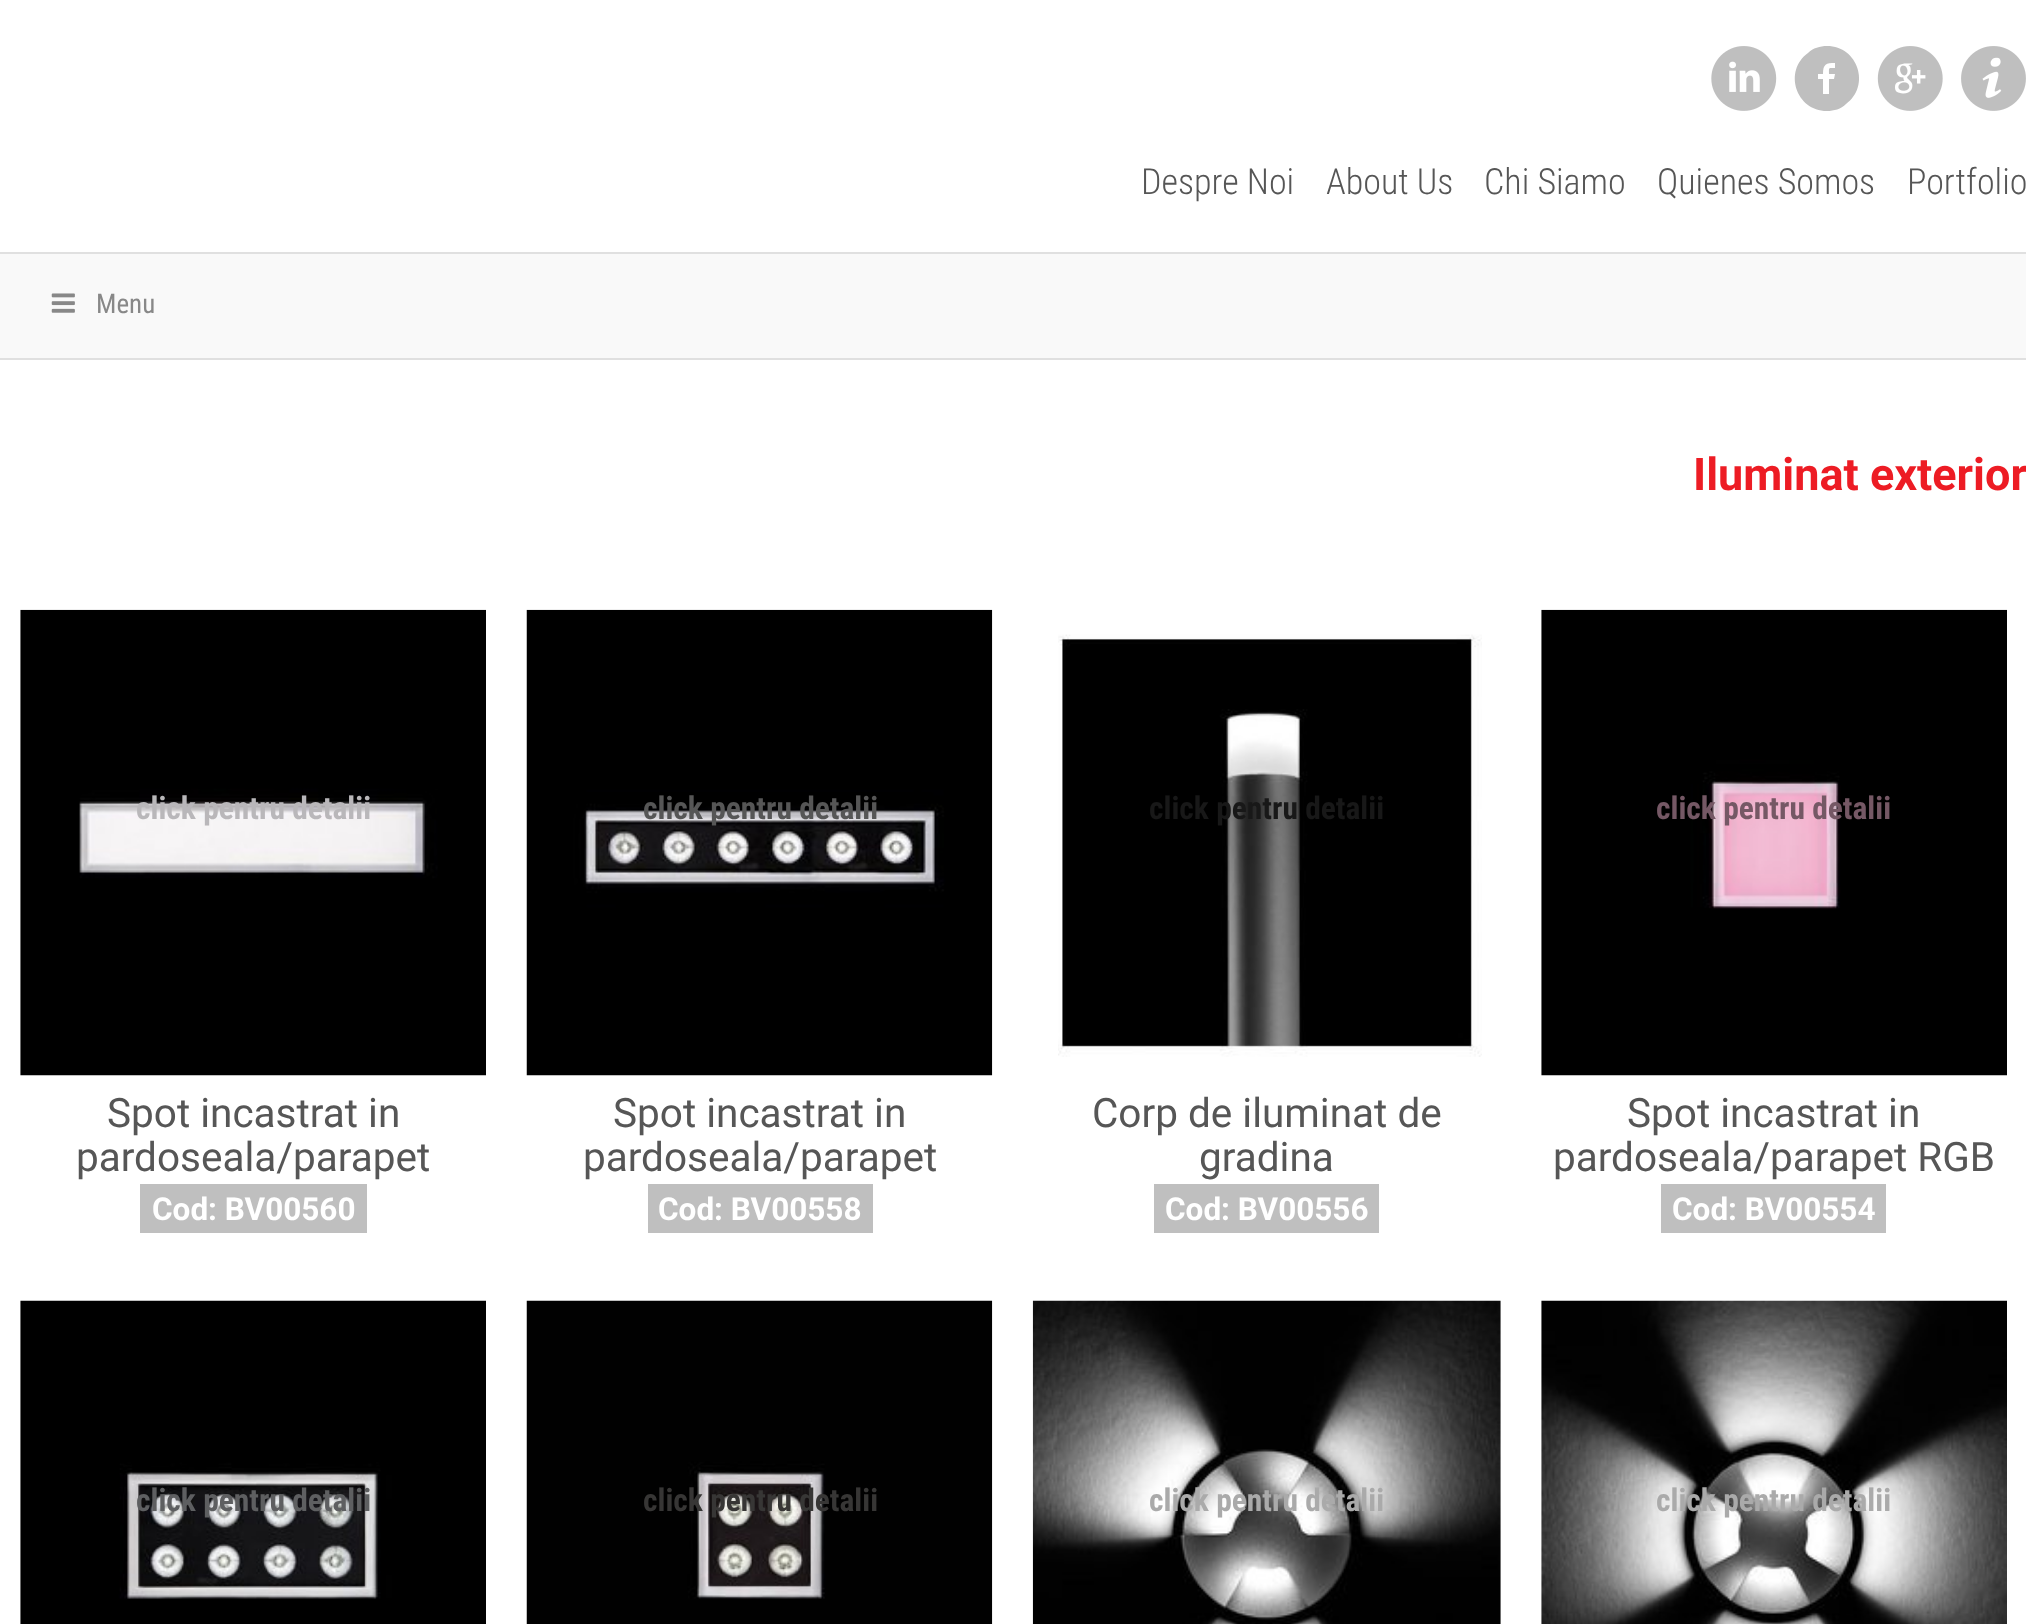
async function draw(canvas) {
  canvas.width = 2026;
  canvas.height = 1624;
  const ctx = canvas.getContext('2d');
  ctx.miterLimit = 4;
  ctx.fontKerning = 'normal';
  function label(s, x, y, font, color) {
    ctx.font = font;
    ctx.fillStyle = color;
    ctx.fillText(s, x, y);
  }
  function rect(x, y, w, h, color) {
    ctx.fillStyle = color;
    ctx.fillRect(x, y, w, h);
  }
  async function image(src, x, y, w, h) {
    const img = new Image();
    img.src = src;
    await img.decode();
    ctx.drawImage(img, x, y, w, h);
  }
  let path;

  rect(0, 0, 2026, 1624, '#fff');
  await image('assets/img1.png', 1711, 46, 66, 65);
  ctx.fillStyle = '#bfbfbf';
  path = new Path2D('M1827 46C1820 46 1813 48 1808 53C1783 71 1796 111 1827 111C1834 111 1841 109 1846 104C1871 86 1858 46 1827 46ZM1835 68C1828 68 1829 67 1829 74H1835L1834 79H1829V94H1823V79H1818V74H1823C1823 64 1826 63 1835 63Z');
  ctx.fill(path);
  await image('assets/img2.png', 1877, 46, 66, 65);
  await image('assets/img3.png', 1961, 46, 65, 65);
  label('Despre Noi', 1141, 194, '300 36px Roboto Condensed', '#565656');
  label('About Us', 1326, 194, '300 36px Roboto Condensed', '#565656');
  label('Chi Siamo', 1484, 194, '300 36px Roboto Condensed', '#565656');
  label('Quienes Somos', 1657, 194, '300 36px Roboto Condensed', '#565656');
  label('Portfolio', 1907, 194, '300 36px Roboto Condensed', '#565656');
  rect(0, 252, 2026, 2, '#e0e0e0');
  rect(0, 358, 2026, 2, '#e0e0e0');
  rect(0, 254, 2026, 104, '#f9f9f9');
  await image('assets/img4.png', 51, 293, 24, 20);
  label('Menu', 96, 313, '27px Roboto Condensed', '#888');
  label('Iluminat exterior', 1693, 490, 'bold 45px Roboto', '#ed1c24');
  await image('assets/img5.png', 20, 609, 466, 467);
  label('click pentru detalii', 136, 819, 'bold 31.5px Roboto Condensed', '#b9b7ba');
  label('Spot incastrat in', 107, 1127, '40.5px Roboto', '#565656');
  label('pardoseala/parapet', 76, 1171, '40.5px Roboto', '#565656');
  rect(140, 1184, 227, 49, '#bfbfbf');
  label('Cod: BV00560', 152, 1220, 'bold 31.5px Roboto', '#fff');
  await image('assets/img6.png', 526, 609, 467, 467);
  label('click pentru detalii', 643, 819, 'bold 31.5px Roboto Condensed', '#565656');
  label('Spot incastrat in', 613, 1127, '40.5px Roboto', '#565656');
  label('pardoseala/parapet', 583, 1171, '40.5px Roboto', '#565656');
  rect(648, 1184, 225, 49, '#bfbfbf');
  label('Cod: BV00558', 658, 1220, 'bold 31.5px Roboto', '#fff');
  await image('assets/img7.png', 1058, 634, 424, 423);
  label('click pentru detalii', 1149, 819, 'bold 31.5px Roboto Condensed', '#181818');
  label('Corp de iluminat de', 1092, 1127, '40.5px Roboto', '#565656');
  label('gradina', 1199, 1171, '40.5px Roboto', '#565656');
  rect(1154, 1184, 225, 49, '#bfbfbf');
  label('Cod: BV00556', 1165, 1220, 'bold 31.5px Roboto', '#fff');
  await image('assets/img8.png', 1541, 609, 466, 467);
  label('click pentru detalii', 1656, 819, 'bold 31.5px Roboto Condensed', '#755865');
  label('Spot incastrat in', 1627, 1127, '40.5px Roboto', '#565656');
  label('pardoseala/parapet RGB', 1553, 1171, '40.5px Roboto', '#565656');
  rect(1661, 1184, 225, 49, '#bfbfbf');
  label('Cod: BV00554', 1672, 1220, 'bold 31.5px Roboto', '#fff');
  await image('assets/img9.png', 20, 1300, 466, 324);
  label('click pentru detalii', 136, 1511, 'bold 31.5px Roboto Condensed', '#5e5f61');
  await image('assets/img10.png', 526, 1300, 467, 324);
  label('click pentru detalii', 643, 1511, 'bold 31.5px Roboto Condensed', '#373635');
  await image('assets/img11.png', 1032, 1300, 469, 324);
  label('click pentru detalii', 1149, 1511, 'bold 31.5px Roboto Condensed', '#aaa');
  await image('assets/img12.png', 1541, 1300, 466, 324);
  label('click pentru detalii', 1656, 1511, 'bold 31.5px Roboto Condensed', '#aaa');
}

draw(document.querySelector('canvas'));
